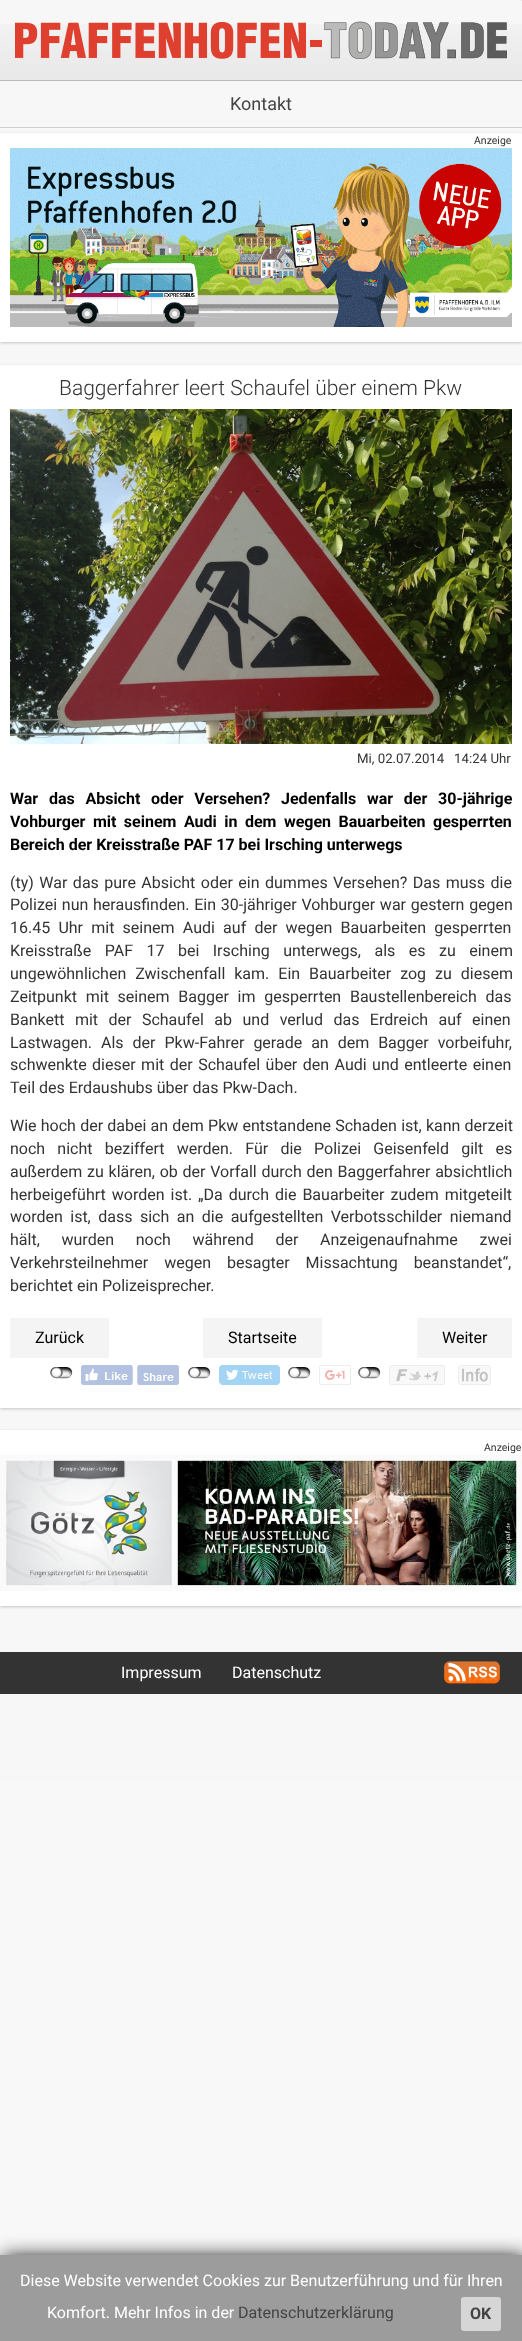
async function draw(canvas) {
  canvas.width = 522;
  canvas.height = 2341;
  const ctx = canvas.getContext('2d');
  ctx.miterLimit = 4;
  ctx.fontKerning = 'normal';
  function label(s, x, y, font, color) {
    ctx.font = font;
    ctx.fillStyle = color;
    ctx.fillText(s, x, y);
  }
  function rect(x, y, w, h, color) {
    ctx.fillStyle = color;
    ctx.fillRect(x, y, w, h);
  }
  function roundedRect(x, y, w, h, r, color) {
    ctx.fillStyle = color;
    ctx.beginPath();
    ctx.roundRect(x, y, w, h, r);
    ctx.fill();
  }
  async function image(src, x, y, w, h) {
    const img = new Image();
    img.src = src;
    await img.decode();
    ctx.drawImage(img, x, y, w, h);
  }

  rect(0, 0, 522, 2341, '#f8f8f8');
  ctx.fillStyle = '#0000004d';
  ctx.filter = 'blur(1.5px)';
  ctx.beginPath();
  ctx.roundRect(0, -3, 522, 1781, 1);
  ctx.fill();
  ctx.filter = 'none';
  roundedRect(0, 0, 522, 1781, 1, '#f7f7f7');
  await image('assets/img1.png', 0, 24, 522, 56);
  rect(0, 80, 522, 1, '#bbb');
  await image('assets/img2.png', 15, 21, 492, 38);
  rect(0, 127, 522, 1, '#cfcfcf');
  label('Kontakt', 230, 110, '18px Roboto', '#444');
  ctx.fillStyle = '#00000033';
  ctx.filter = 'blur(1.5px)';
  ctx.beginPath();
  ctx.roundRect(0, 134, 522, 209, 1);
  ctx.fill();
  ctx.filter = 'none';
  roundedRect(0, 133, 522, 209, 1, '#fff');
  label('Anzeige', 474, 144, '10.5px Roboto', '#333');
  await image('assets/img3.png', 10, 148, 502, 179);
  ctx.fillStyle = '#00000033';
  ctx.filter = 'blur(1.5px)';
  ctx.beginPath();
  ctx.rect(0, 366, 522, 1043);
  ctx.fill();
  ctx.filter = 'none';
  rect(0, 365, 522, 1043, '#fff');
  label('Baggerfahrer leert Schaufel über einem Pkw', 59, 395, '300 21px Roboto', '#333');
  await image('assets/img4.png', 10, 409, 502, 335);
  label('Mi, 02.07.2014   14:24 Uhr', 357, 763, '13.25px Roboto', '#333');
  ctx.wordSpacing = '6.75px';
  label('War das Absicht oder Versehen? Jedenfalls war der 30-jährige', 10, 804, 'bold 16px Roboto', '#000');
  ctx.wordSpacing = '3.5px';
  label('Vohburger mit seinem Audi in dem wegen Bauarbeiten gesperrten', 10, 827, 'bold 16px Roboto', '#000');
  ctx.wordSpacing = '0px';
  label('Bereich der Kreisstraße PAF 17 bei Irsching unterwegs', 10, 850, 'bold 16px Roboto', '#000');
  ctx.wordSpacing = '1.5px';
  label('(ty) War das pure Absicht oder ein dummes Versehen? Das muss die', 10, 888, '16px Roboto', '#333');
  ctx.wordSpacing = '0.75px';
  label('Polizei nun herausfinden. Ein 30-jähriger Vohburger war gestern gegen', 10, 910, '16px Roboto', '#333');
  ctx.wordSpacing = '4.25px';
  label('16.45 Uhr mit seinem Audi auf der wegen Bauarbeiten gesperrten', 10, 933, '16px Roboto', '#333');
  ctx.wordSpacing = '9.5px';
  label('Kreisstraße PAF 17 bei Irsching unterwegs, als es zu einem', 10, 956, '16px Roboto', '#333');
  ctx.wordSpacing = '5px';
  label('ungewöhnlichen Zwischenfall kam. Ein Bauarbeiter zog zu diesem', 10, 979, '16px Roboto', '#333');
  ctx.wordSpacing = '4.75px';
  label('Zeitpunkt mit seinem Bagger im gesperrten Baustellenbereich das', 10, 1002, '16px Roboto', '#333');
  ctx.wordSpacing = '6.5px';
  label('Bankett mit der Schaufel ab und verlud das Erdreich auf einen', 10, 1025, '16px Roboto', '#333');
  ctx.wordSpacing = '5px';
  label('Lastwagen. Als der Pkw-Fahrer gerade an dem Bagger vorbeifuhr,', 10, 1048, '16px Roboto', '#333');
  ctx.wordSpacing = '1.5px';
  label('schwenkte dieser mit der Schaufel über den Audi und entleerte einen', 10, 1070, '16px Roboto', '#333');
  ctx.wordSpacing = '0px';
  label('Teil des Erdaushubs über das Pkw-Dach.', 10, 1093, '16px Roboto', '#333');
  ctx.wordSpacing = '0.25px';
  label('Wie hoch der dabei an dem Pkw entstandene Schaden ist, kann derzeit', 10, 1131, '16px Roboto', '#333');
  ctx.wordSpacing = '8.25px';
  label('noch nicht beziffert werden. Für die Polizei Geisenfeld gilt es', 10, 1154, '16px Roboto', '#333');
  ctx.wordSpacing = '0.75px';
  label('außerdem zu klären, ob der Vorfall durch den Baggerfahrer absichtlich', 10, 1177, '16px Roboto', '#333');
  ctx.wordSpacing = '2px';
  label('herbeigeführt worden ist. „Da durch die Bauarbeiter zudem mitgeteilt', 10, 1200, '16px Roboto', '#333');
  ctx.wordSpacing = '3.5px';
  label('worden ist, dass sich an die aufgestellten Verbotsschilder niemand', 10, 1222, '16px Roboto', '#333');
  ctx.wordSpacing = '17.75px';
  label('hält, wurden noch während der Anzeigenaufnahme zwei', 10, 1245, '16px Roboto', '#333');
  ctx.wordSpacing = '12px';
  label('Verkehrsteilnehmer wegen besagter Missachtung beanstandet“,', 10, 1268, '16px Roboto', '#333');
  ctx.wordSpacing = '0px';
  label('berichtet ein Polizeisprecher.', 10, 1291, '16px Roboto', '#333');
  rect(10, 1318, 99, 40, '#f4f4f4');
  label('Zurück', 35, 1343, '16px Roboto', '#000');
  rect(203, 1318, 119, 40, '#f4f4f4');
  label('Startseite', 228, 1343, '16px Roboto', '#000');
  rect(417, 1318, 95, 40, '#f4f4f4');
  label('Weiter', 442, 1343, '16px Roboto', '#000');
  await image('assets/img5.png', 50, 1367, 23, 12);
  await image('assets/img6.png', 81, 1365, 98, 20);
  await image('assets/img5.png', 188, 1367, 23, 12);
  await image('assets/img7.png', 219, 1365, 61, 20);
  await image('assets/img5.png', 288, 1367, 23, 12);
  await image('assets/img8.png', 319, 1365, 32, 20);
  await image('assets/img5.png', 358, 1367, 23, 12);
  await image('assets/img9.png', 389, 1365, 56, 20);
  await image('assets/img10.png', 458, 1365, 33, 20);
  ctx.fillStyle = '#00000033';
  ctx.filter = 'blur(1.5px)';
  ctx.beginPath();
  ctx.roundRect(0, 1431, 522, 176, 1);
  ctx.fill();
  ctx.filter = 'none';
  roundedRect(0, 1430, 522, 176, 1, '#fff');
  label('Anzeige', 484, 1451, '10.5px Roboto', '#333');
  await image('assets/img11.png', 0, 1455, 522, 136);
  rect(0, 1652, 522, 42, '#333');
  label('Impressum', 121, 1678, '16px Roboto', '#fff');
  label('Datenschutz', 232, 1678, '16px Roboto', '#fff');
  await image('assets/img12.png', 444, 1661, 56, 23);
  ctx.fillStyle = '#000';
  ctx.filter = 'blur(10px)';
  ctx.beginPath();
  ctx.rect(3, 2257, 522, 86);
  ctx.fill();
  ctx.filter = 'none';
  rect(0, 2255, 522, 86, '#9c9c9c');
  label('Diese Website verwendet Cookies zur Benutzerführung und für Ihren', 20, 2286, '16px Roboto', '#fff');
  label('Komfort. Mehr Infos in der', 47, 2318, '16px Roboto', '#fff');
  label('Datenschutzerklärung', 238, 2318, '16px Roboto', '#444');
  roundedRect(461, 2297, 40, 34, 3, '#d6d6d6');
  label('OK', 470, 2319, 'bold 16px Roboto', '#444');
}

draw(document.querySelector('canvas'));
